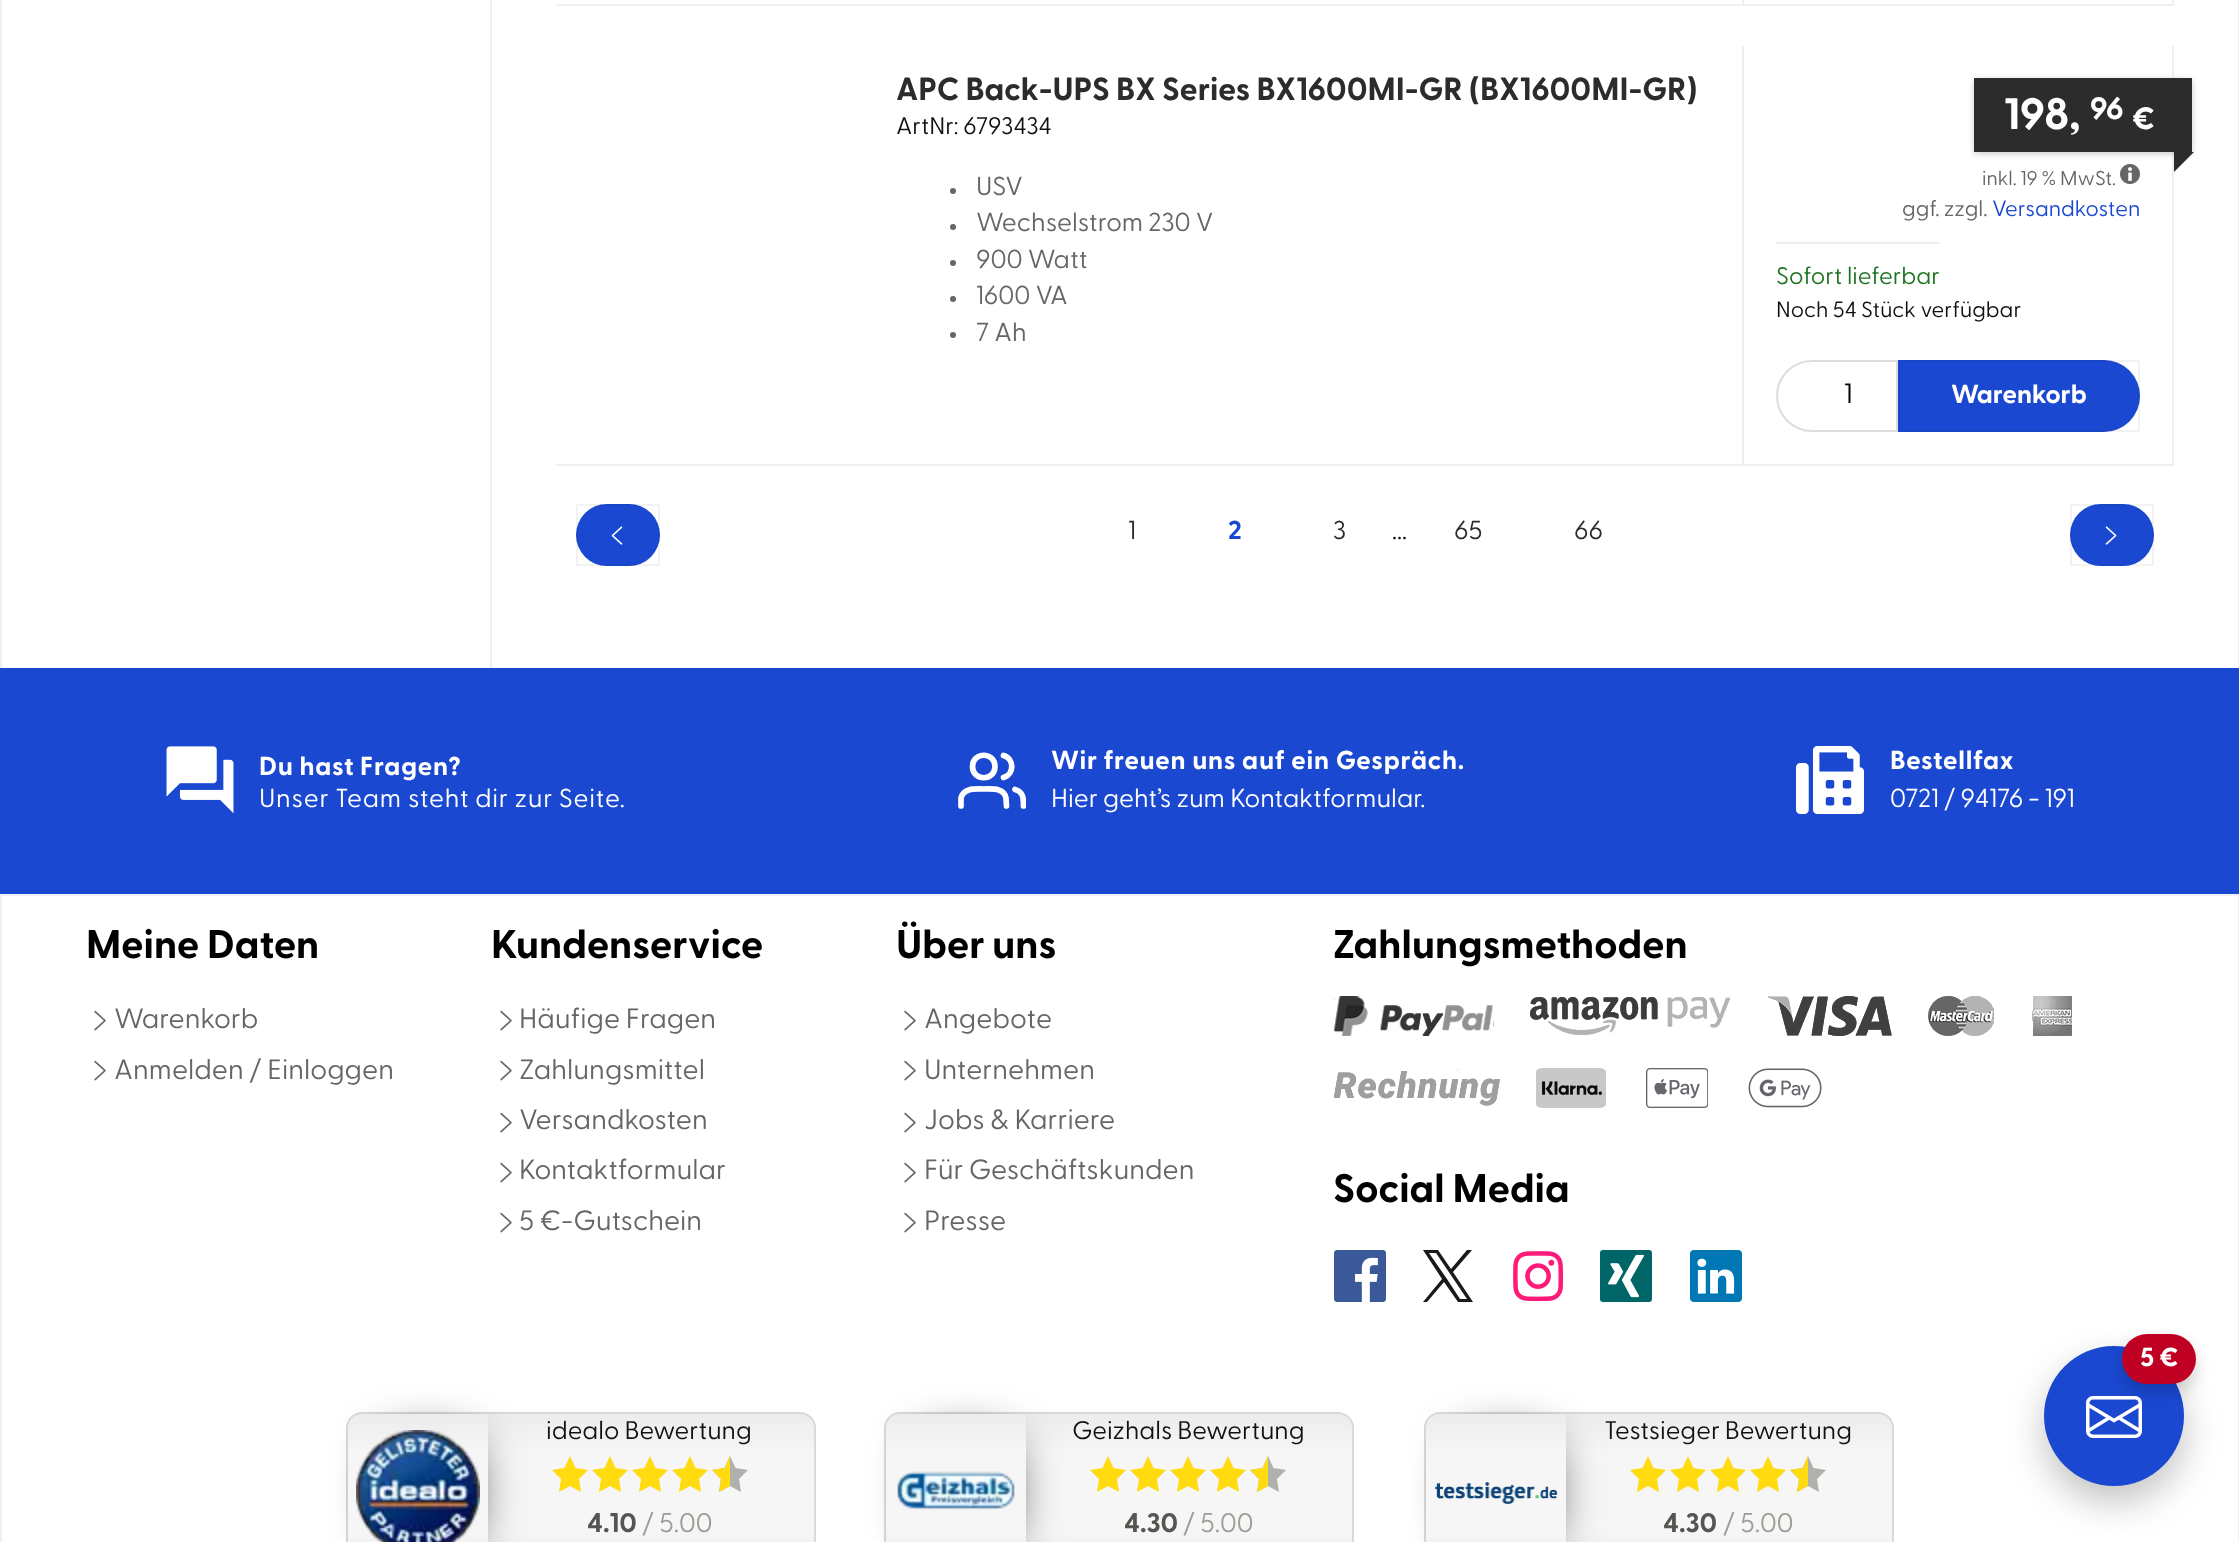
async function draw(canvas) {
  canvas.width = 2239;
  canvas.height = 1542;
  const ctx = canvas.getContext('2d');
  ctx.miterLimit = 4;
  ctx.fontKerning = 'normal';
  function label(s, x, y, font, color) {
    ctx.font = font;
    ctx.fillStyle = color;
    ctx.fillText(s, x, y);
  }
  function rect(x, y, w, h, color) {
    ctx.fillStyle = color;
    ctx.fillRect(x, y, w, h);
  }
  function roundedRect(x, y, w, h, r, color) {
    ctx.fillStyle = color;
    ctx.beginPath();
    ctx.roundRect(x, y, w, h, r);
    ctx.fill();
  }
  async function image(src, x, y, w, h) {
    const img = new Image();
    img.src = src;
    await img.decode();
    ctx.drawImage(img, x, y, w, h);
  }
  let gradient, path;

  rect(0, 0, 2239, 1542, '#fff');
  rect(490, 0, 2, 668, '#f0f0f0');
  rect(0, 0, 2, 668, '#f0f0f0');
  rect(2238, 0, 1, 668, '#f0f0f0');
  rect(2172, 0, 2, 6, '#f0f0f0');
  rect(556, 4, 1618, 2, '#f0f0f0');
  rect(1742, 0, 2, 4, '#eee');
  rect(2172, 46, 2, 420, '#f0f0f0');
  rect(556, 464, 1618, 2, '#f0f0f0');
  label('APC Back-UPS BX Series BX1600MI-GR (BX1600MI-GR)', 896, 100, 'bold 32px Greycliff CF', '#2c2c2c');
  label('ArtNr: 6793434', 896, 134, '24px Greycliff CF', '#111');
  ctx.fillStyle = '#666';
  ctx.beginPath();
  ctx.arc(953, 191, 3, 0, 2 * Math.PI);
  ctx.fill();
  label('USV', 976, 195, '26px Greycliff CF', '#666');
  ctx.beginPath();
  ctx.arc(953, 227, 3, 0, 2 * Math.PI);
  ctx.fill();
  label('Wechselstrom 230 V', 976, 231, '26px Greycliff CF', '#666');
  ctx.beginPath();
  ctx.arc(953, 263, 3, 0, 2 * Math.PI);
  ctx.fill();
  label('900 Watt', 976, 268, '26px Greycliff CF', '#666');
  ctx.beginPath();
  ctx.arc(953, 299, 3, 0, 2 * Math.PI);
  ctx.fill();
  label('1600 VA', 976, 304, '26px Greycliff CF', '#666');
  ctx.beginPath();
  ctx.arc(953, 335, 3, 0, 2 * Math.PI);
  ctx.fill();
  label('7 Ah', 976, 341, '26px Greycliff CF', '#666');
  rect(1742, 46, 2, 418, '#eee');
  ctx.fillStyle = '#00000033';
  ctx.filter = 'blur(3px)';
  ctx.beginPath();
  ctx.rect(1974, 80, 218, 74);
  ctx.fill();
  ctx.filter = 'none';
  rect(1974, 78, 218, 74, '#2c2c2c');
  label('198,', 2004, 129, 'bold 44px Greycliff CF', '#fff');
  label('96', 2090, 119, 'bold 31px Greycliff CF', '#fff');
  label('€', 2132, 129, 'bold 31px Greycliff CF', '#fff');
  ctx.fillStyle = '#2c2c2c';
  path = new Path2D('M2174 172V152H2194Z');
  ctx.fill(path);
  label('inkl. 19 % MwSt.', 1982, 185, '20px Greycliff CF', '#666');
  await image('assets/img1.png', 2120, 164, 20, 20);
  label('ggf. zzgl.', 1902, 216, '22px Greycliff CF', '#666');
  label('Versandkosten', 1992, 216, '22px Greycliff CF', '#1a48d1');
  rect(1776, 242, 164, 2, '#eee');
  label('Sofort lieferbar', 1776, 284, '24px Greycliff CF', '#1e7321');
  label('Noch 54 Stück verfügbar', 1776, 317, '22px Greycliff CF', '#111');
  ctx.beginPath();
  ctx.roundRect(1777, 361, 120, 70, [35, 0, 0, 35]);
  ctx.strokeStyle = '#ddd';
  ctx.lineWidth = 2;
  ctx.stroke();
  label('1', 1844, 403, '28px Greycliff CF', '#000');
  ctx.fillStyle = '#1a48d1';
  ctx.beginPath();
  ctx.roundRect(1898, 360, 242, 72, [0, 36, 36, 0]);
  ctx.fill();
  ctx.strokeStyle = '#0000000d';
  ctx.strokeRect(1899, 361, 240, 70);
  label('Warenkorb', 1951, 403, 'bold 26px Greycliff CF', '#fff');
  roundedRect(576, 504, 84, 62, 31, '#1a48d1');
  ctx.strokeRect(577, 505, 82, 60);
  await image('assets/img2.png', 611, 526, 12, 19);
  label('1', 1128, 539, '26px Greycliff CF', '#2c2c2c');
  label('2', 1228, 539, 'bold 26px Greycliff CF', '#1a48d1');
  label('3', 1333, 539, '26px Greycliff CF', '#2c2c2c');
  label('...', 1392, 539, '26px Greycliff CF', '#111');
  label('65', 1454, 539, '26px Greycliff CF', '#2c2c2c');
  label('66', 1574, 539, '26px Greycliff CF', '#2c2c2c');
  roundedRect(2070, 504, 84, 62, 31, '#1a48d1');
  ctx.strokeRect(2071, 505, 82, 60);
  await image('assets/img3.png', 2105, 526, 12, 19);
  rect(0, 668, 2239, 226, '#1a48d1');
  await image('assets/img4.png', 166, 746, 68, 68);
  ctx.letterSpacing = '0.75px';
  label('Du hast Fragen?', 259, 775, 'bold 26px Greycliff CF', '#fff');
  label('Unser Team steht dir zur Seite.', 259, 807, '26px Greycliff CF', '#fff');
  path = new Path2D('M1006.5 806L1006 798C1004 787.5 992 789 983.5 789C975.5 789 963.5 787.5 961 798V806M995 766.5C995 781.5 972.5 781.5 972.5 766.5C972.5 751.5 995 751.5 995 766.5Z');
  ctx.strokeStyle = '#fff';
  ctx.lineWidth = 5.7;
  ctx.lineCap = 'round';
  ctx.lineJoin = 'round';
  ctx.stroke(path);
  ctx.save();
  ctx.beginPath();
  ctx.rect(958, 746, 68, 68);
  ctx.clip();
  path = new Path2D('M1023.5 806C1023.5 799 1023.5 791.5 1015 789.5');
  ctx.stroke(path);
  ctx.restore();
  path = new Path2D('M1003.5 755.5C1014.5 758.5 1014.5 774.5 1003.5 777.5');
  ctx.stroke(path);
  label('Wir freuen uns auf ein Gespräch.', 1051, 769, 'bold 26px Greycliff CF', '#fff');
  ctx.letterSpacing = '0px';
  label('Hier geht’s zum Kontaktformular.', 1051, 807, '26px Greycliff CF', '#fff');
  await image('assets/img5.png', 1796, 746, 68, 68);
  ctx.letterSpacing = '0.75px';
  label('Bestellfax', 1890, 769, 'bold 26px Greycliff CF', '#fff');
  ctx.letterSpacing = '0px';
  label('0721 / 94176 - 191', 1890, 807, '26px Greycliff CF', '#fff');
  ctx.strokeStyle = '#f0f0f0';
  ctx.lineWidth = 2;
  ctx.lineJoin = 'miter';
  ctx.strokeRect(1, 895, 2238, 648);
  label('Meine Daten', 86, 958, 'bold 40px Greycliff CF', '#000');
  await image('assets/img6.png', 94, 1010, 12, 21);
  label('Warenkorb', 114, 1028, '28px Greycliff CF', '#666');
  await image('assets/img6.png', 94, 1060, 12, 21);
  label('Anmelden / Einloggen', 114, 1079, '28px Greycliff CF', '#666');
  label('Kundenservice', 491, 958, 'bold 40px Greycliff CF', '#000');
  await image('assets/img6.png', 500, 1010, 12, 21);
  label('Häufige Fragen', 519, 1028, '28px Greycliff CF', '#666');
  await image('assets/img6.png', 500, 1060, 12, 21);
  label('Zahlungsmittel', 519, 1079, '28px Greycliff CF', '#666');
  await image('assets/img6.png', 500, 1112, 12, 21);
  label('Versandkosten', 519, 1129, '28px Greycliff CF', '#666');
  await image('assets/img6.png', 500, 1162, 12, 21);
  label('Kontaktformular', 519, 1179, '28px Greycliff CF', '#666');
  await image('assets/img6.png', 500, 1212, 12, 21);
  label('5 €-Gutschein', 519, 1230, '28px Greycliff CF', '#666');
  label('Über uns', 896, 958, 'bold 40px Greycliff CF', '#000');
  await image('assets/img6.png', 904, 1010, 12, 21);
  label('Angebote', 924, 1028, '28px Greycliff CF', '#666');
  await image('assets/img6.png', 904, 1060, 12, 21);
  label('Unternehmen', 924, 1079, '28px Greycliff CF', '#666');
  await image('assets/img6.png', 904, 1112, 12, 21);
  label('Jobs & Karriere', 924, 1129, '28px Greycliff CF', '#666');
  await image('assets/img6.png', 904, 1162, 12, 21);
  label('Für Geschäftskunden', 924, 1179, '28px Greycliff CF', '#666');
  await image('assets/img6.png', 904, 1212, 12, 21);
  label('Presse', 924, 1230, '28px Greycliff CF', '#666');
  label('Zahlungsmethoden', 1333, 958, 'bold 40px Greycliff CF', '#000');
  await image('assets/img7.png', 1334, 996, 160, 40);
  await image('assets/img8.png', 1530, 997, 200, 38);
  await image('assets/img9.png', 1768, 996, 124, 40);
  await image('assets/img10.png', 1928, 996, 66, 40);
  await image('assets/img11.png', 2032, 996, 40, 40);
  await image('assets/img12.png', 1334, 1068, 166, 38);
  await image('assets/img13.png', 1536, 1068, 70, 40);
  await image('assets/img14.png', 1646, 1068, 62, 40);
  await image('assets/img15.png', 1748, 1068, 74, 40);
  label('Social Media', 1333, 1202, 'bold 40px Greycliff CF', '#000');
  await image('assets/img16.png', 1334, 1250, 52, 52);
  ctx.fillStyle = '#1a1a1a';
  path = new Path2D('M1453 1272L1472 1250H1467L1451 1269L1438 1250H1423L1442 1279L1423 1302H1427L1444 1282L1458 1302H1473ZM1447 1279L1429 1253H1436L1467 1299H1460Z');
  ctx.fill(path);
  await image('assets/img17.png', 1513, 1251, 51, 51);
  await image('assets/img18.png', 1600, 1250, 52, 52);
  await image('assets/img19.png', 1690, 1250, 52, 52);
  ctx.save();
  ctx.beginPath();
  ctx.roundRect(346, 1412, 470, 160, 16);
  ctx.clip();
  gradient = ctx.createLinearGradient(581, 1414, 581, 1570);
  gradient.addColorStop(0, '#ececec');
  gradient.addColorStop(0.25, '#f6f6f6');
  gradient.addColorStop(0.75, '#f6f6f6');
  gradient.addColorStop(1, '#eaeaea');
  ctx.fillStyle = gradient;
  ctx.fillRect(346, 1414, 470, 128);
  ctx.restore();
  ctx.beginPath();
  ctx.roundRect(347, 1413, 468, 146, 15);
  ctx.strokeStyle = '#dad9d5';
  ctx.stroke();
  ctx.save();
  path = new Path2D('M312 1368H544V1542H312ZM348 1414H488V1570H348Z');
  ctx.clip(path, 'evenodd');
  ctx.fillStyle = '#000';
  ctx.filter = 'blur(25px)';
  ctx.beginPath();
  ctx.rect(388, 1444, 80, 96);
  ctx.fill();
  ctx.filter = 'none';
  ctx.restore();
  await image('assets/img20.png', 356, 1430, 124, 112);
  label('idealo Bewertung', 546, 1439, '25.5px Greycliff CF', '#111');
  ctx.fillStyle = '#ffdb0f';
  path = new Path2D('M570 1486V1456L564.5 1468L552 1470L561 1479L559 1492ZM581 1492L579 1479L588 1470L575.5 1468L570 1456V1486Z');
  ctx.fill(path);
  path = new Path2D('M610 1486V1456L604.5 1468L592 1470L601 1479L599 1492ZM621 1492L619 1479L628 1470L615.5 1468L610 1456V1486Z');
  ctx.fill(path);
  path = new Path2D('M650 1486V1456L644.5 1468L632 1470L641 1479L639 1492ZM661 1492L659 1479L668 1470L655.5 1468L650 1456V1486Z');
  ctx.fill(path);
  ctx.fillStyle = '#b0b1ad';
  path = new Path2D('M730 1486V1456L724.5 1468L712 1470L721 1479L719 1492ZM741 1492L739 1479L748 1470L735.5 1468L730 1456V1486Z');
  ctx.fill(path);
  ctx.fillStyle = '#ffdb0f';
  path = new Path2D('M690 1486V1456L684.5 1468L672 1470L681 1479L679 1492ZM701 1492L699 1479L708 1470L695.5 1468L690 1456V1486ZM730 1486V1456L724.5 1468L712 1470L721 1479L719 1492Z');
  ctx.fill(path);
  label('4.10', 587, 1532, 'bold 27px Greycliff CF', '#545651');
  label('/ 5.00', 642, 1532, '27px Greycliff CF', '#9d9d95');
  ctx.save();
  ctx.beginPath();
  ctx.roundRect(884, 1412, 470, 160, 16);
  ctx.clip();
  gradient = ctx.createLinearGradient(1119, 1414, 1119, 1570);
  gradient.addColorStop(0, '#ececec');
  gradient.addColorStop(0.25, '#f6f6f6');
  gradient.addColorStop(0.75, '#f6f6f6');
  gradient.addColorStop(1, '#eaeaea');
  ctx.fillStyle = gradient;
  ctx.fillRect(884, 1414, 470, 128);
  ctx.restore();
  ctx.beginPath();
  ctx.roundRect(885, 1413, 468, 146, 15);
  ctx.stroke();
  ctx.save();
  path = new Path2D('M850 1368H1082V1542H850ZM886 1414H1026V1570H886Z');
  ctx.clip(path, 'evenodd');
  ctx.fillStyle = '#000';
  ctx.filter = 'blur(25px)';
  ctx.beginPath();
  ctx.rect(926, 1444, 80, 96);
  ctx.fill();
  ctx.filter = 'none';
  ctx.restore();
  await image('assets/img21.png', 897, 1471, 118, 39);
  label('Geizhals Bewertung', 1072, 1439, '25.5px Greycliff CF', '#111');
  ctx.fillStyle = '#ffdb0f';
  path = new Path2D('M1108 1486V1456L1102.5 1468L1090 1470L1099 1479L1097 1492ZM1119 1492L1117 1479L1126 1470L1113.5 1468L1108 1456V1486Z');
  ctx.fill(path);
  path = new Path2D('M1148 1486V1456L1142.5 1468L1130 1470L1139 1479L1137 1492ZM1159 1492L1157 1479L1166 1470L1153.5 1468L1148 1456V1486Z');
  ctx.fill(path);
  path = new Path2D('M1188 1486V1456L1182.5 1468L1170 1470L1179 1479L1177 1492ZM1199 1492L1197 1479L1206 1470L1193.5 1468L1188 1456V1486Z');
  ctx.fill(path);
  ctx.fillStyle = '#b0b1ad';
  path = new Path2D('M1268 1486V1456L1262.5 1468L1250 1470L1259 1479L1257 1492ZM1279 1492L1277 1479L1286 1470L1273.5 1468L1268 1456V1486Z');
  ctx.fill(path);
  ctx.fillStyle = '#ffdb0f';
  path = new Path2D('M1228 1486V1456L1222.5 1468L1210 1470L1219 1479L1217 1492ZM1239 1492L1237 1479L1246 1470L1233.5 1468L1228 1456V1486ZM1268 1486V1456L1262.5 1468L1250 1470L1259 1479L1257 1492Z');
  ctx.fill(path);
  label('4.30', 1124, 1532, 'bold 27px Greycliff CF', '#545651');
  label('/ 5.00', 1183, 1532, '27px Greycliff CF', '#9d9d95');
  ctx.save();
  ctx.beginPath();
  ctx.roundRect(1424, 1412, 470, 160, 16);
  ctx.clip();
  gradient = ctx.createLinearGradient(1659, 1414, 1659, 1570);
  gradient.addColorStop(0, '#ececec');
  gradient.addColorStop(0.25, '#f6f6f6');
  gradient.addColorStop(0.75, '#f6f6f6');
  gradient.addColorStop(1, '#eaeaea');
  ctx.fillStyle = gradient;
  ctx.fillRect(1424, 1414, 470, 128);
  ctx.restore();
  ctx.beginPath();
  ctx.roundRect(1425, 1413, 468, 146, 15);
  ctx.stroke();
  ctx.save();
  path = new Path2D('M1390 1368H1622V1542H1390ZM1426 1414H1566V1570H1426Z');
  ctx.clip(path, 'evenodd');
  ctx.fillStyle = '#000';
  ctx.filter = 'blur(25px)';
  ctx.beginPath();
  ctx.rect(1466, 1444, 80, 96);
  ctx.fill();
  ctx.filter = 'none';
  ctx.restore();
  await image('assets/img22.png', 1435, 1482, 123, 22);
  label('Testsieger Bewertung', 1604, 1439, '25.5px Greycliff CF', '#111');
  ctx.fillStyle = '#ffdb0f';
  path = new Path2D('M1648 1486V1456L1642.5 1468L1630 1470L1639 1479L1637 1492ZM1659 1492L1657 1479L1666 1470L1653.5 1468L1648 1456V1486Z');
  ctx.fill(path);
  path = new Path2D('M1688 1486V1456L1682.5 1468L1670 1470L1679 1479L1677 1492ZM1699 1492L1697 1479L1706 1470L1693.5 1468L1688 1456V1486Z');
  ctx.fill(path);
  path = new Path2D('M1728 1486V1456L1722.5 1468L1710 1470L1719 1479L1717 1492ZM1739 1492L1737 1479L1746 1470L1733.5 1468L1728 1456V1486Z');
  ctx.fill(path);
  ctx.fillStyle = '#b0b1ad';
  path = new Path2D('M1808 1486V1456L1802.5 1468L1790 1470L1799 1479L1797 1492ZM1819 1492L1817 1479L1826 1470L1813.5 1468L1808 1456V1486Z');
  ctx.fill(path);
  ctx.fillStyle = '#ffdb0f';
  path = new Path2D('M1768 1486V1456L1762.5 1468L1750 1470L1759 1479L1757 1492ZM1779 1492L1777 1479L1786 1470L1773.5 1468L1768 1456V1486ZM1808 1486V1456L1802.5 1468L1790 1470L1799 1479L1797 1492Z');
  ctx.fill(path);
  label('4.30', 1663, 1532, 'bold 27px Greycliff CF', '#545651');
  label('/ 5.00', 1723, 1532, '27px Greycliff CF', '#9d9d95');
  ctx.fillStyle = '#0000003d';
  ctx.filter = 'blur(18px)';
  ctx.beginPath();
  ctx.roundRect(2044, 1362, 140, 140, 70);
  ctx.fill();
  ctx.filter = 'none';
  ctx.fillStyle = '#1a48d1';
  ctx.beginPath();
  ctx.arc(2114, 1416, 70, 0, 2 * Math.PI);
  ctx.fill();
  await image('assets/img23.png', 2086, 1396, 56, 42);
  ctx.fillStyle = '#0000002e';
  ctx.filter = 'blur(8px)';
  ctx.beginPath();
  ctx.roundRect(2122, 1342, 74, 50, 25);
  ctx.fill();
  ctx.filter = 'none';
  roundedRect(2122, 1334, 74, 50, 25, '#bf0022');
  label('5 €', 2140, 1366, 'bold 26px Greycliff CF', '#fff');
}

draw(document.querySelector('canvas'));
